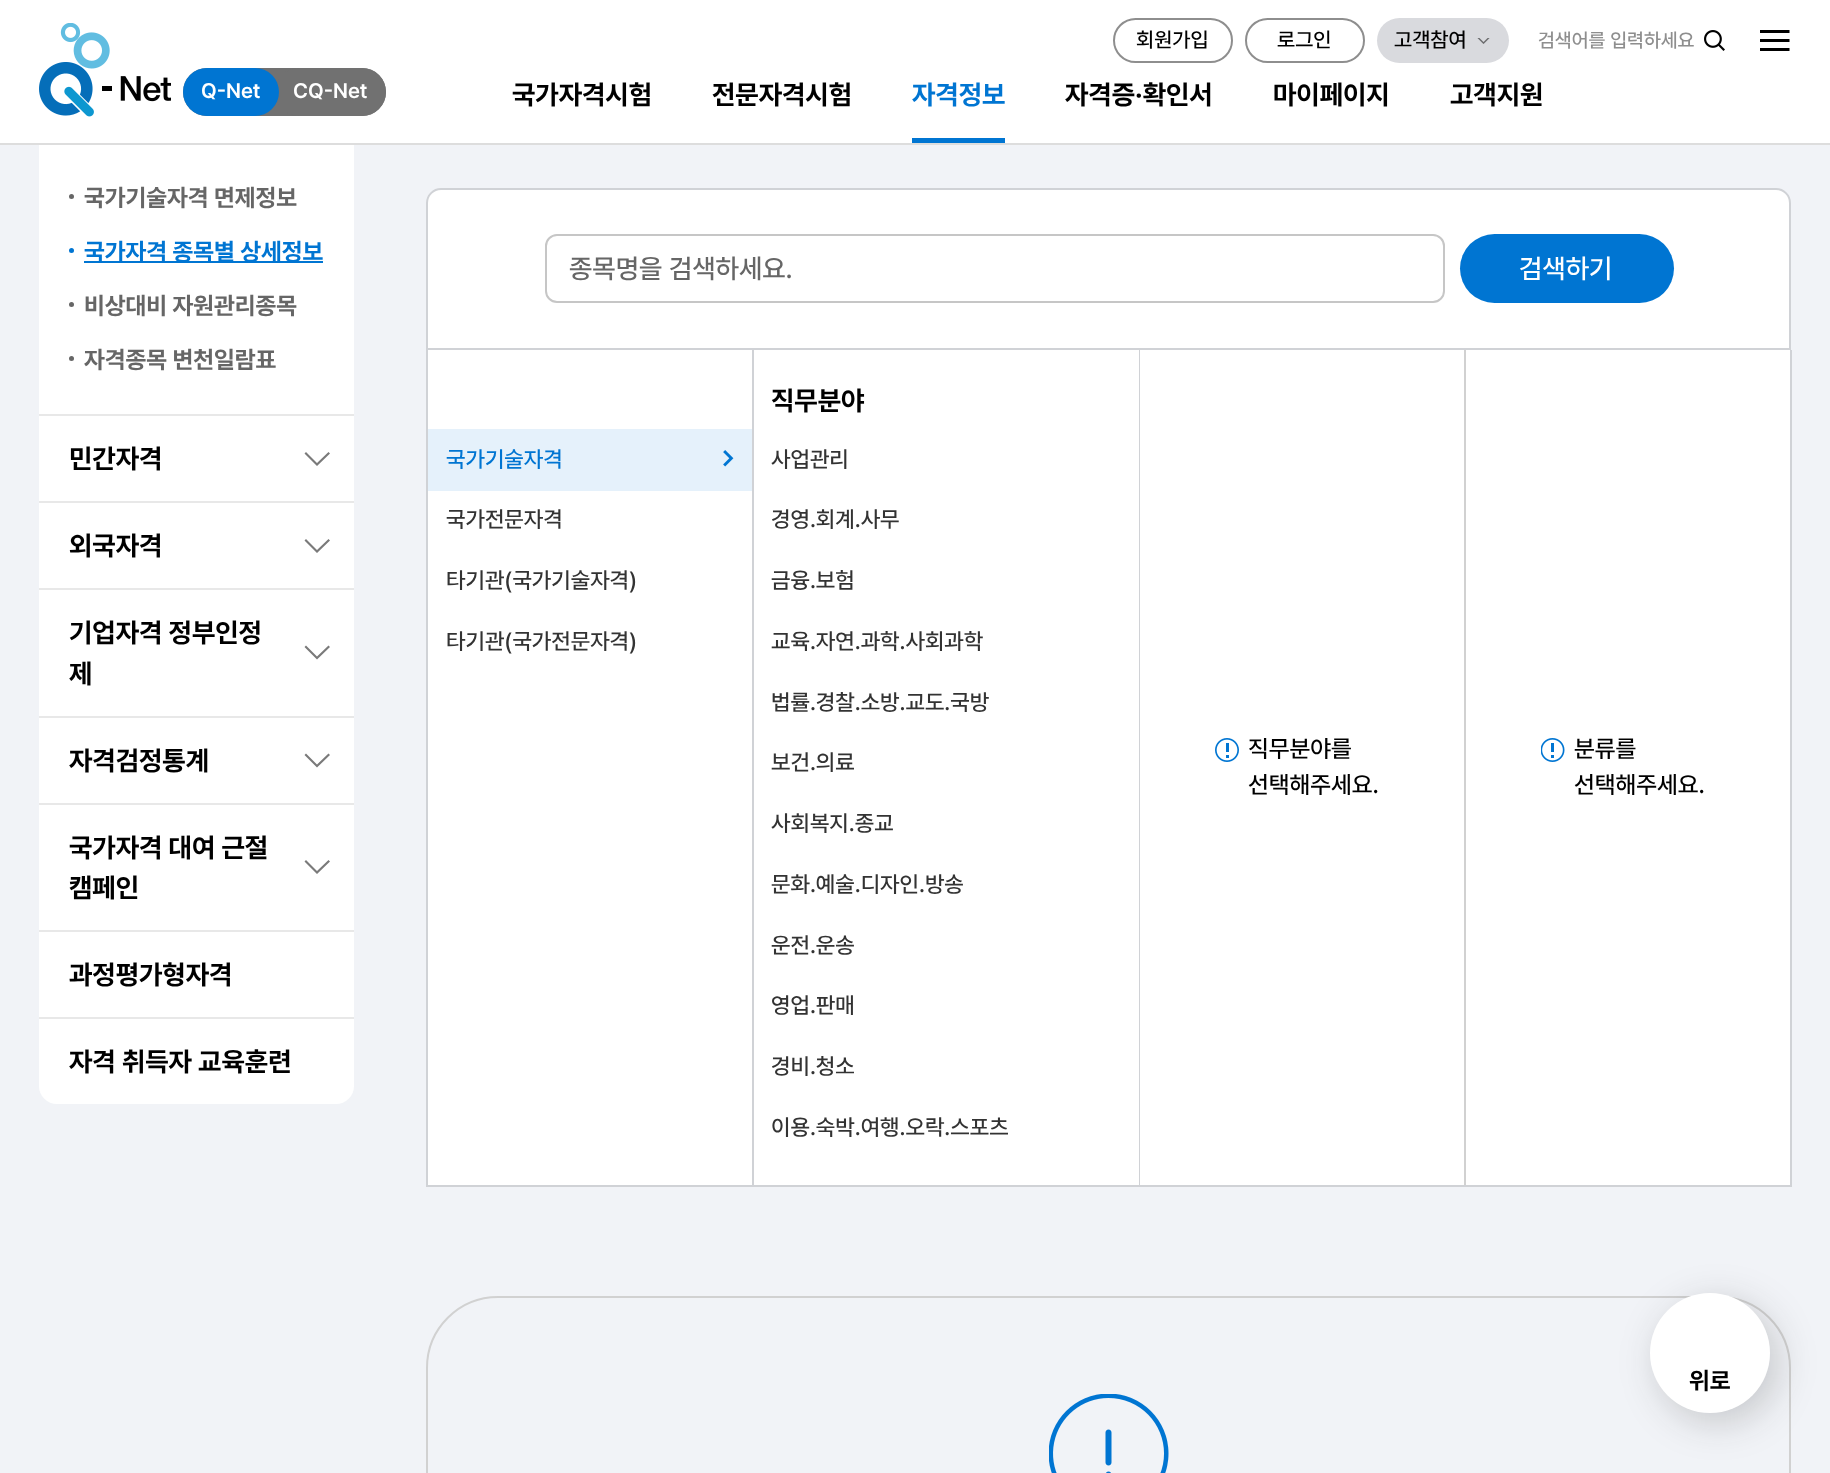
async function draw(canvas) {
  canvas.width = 1830;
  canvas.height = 1473;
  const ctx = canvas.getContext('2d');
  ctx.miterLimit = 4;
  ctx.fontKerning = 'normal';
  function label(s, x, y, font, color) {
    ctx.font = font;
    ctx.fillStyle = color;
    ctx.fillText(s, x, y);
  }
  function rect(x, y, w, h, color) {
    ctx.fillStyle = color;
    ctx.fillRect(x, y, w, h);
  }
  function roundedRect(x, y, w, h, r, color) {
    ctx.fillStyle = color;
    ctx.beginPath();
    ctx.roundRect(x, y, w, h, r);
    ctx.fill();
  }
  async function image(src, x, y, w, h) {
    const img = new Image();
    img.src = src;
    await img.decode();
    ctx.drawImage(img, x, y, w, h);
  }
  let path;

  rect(0, 0, 1830, 1473, '#f1f3f7');
  roundedRect(39, -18, 315, 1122, 18, '#fff');
  rect(0, 0, 1830, 143, '#fff');
  rect(0, 143, 1830, 2, '#ddd');
  await image('assets/img1.png', 39, 23, 132, 94);
  ctx.beginPath();
  ctx.roundRect(1114, 19, 118, 43, 21.5);
  ctx.strokeStyle = '#8e8e8e';
  ctx.lineWidth = 2;
  ctx.stroke();
  label('회원가입', 1136, 47, '500 21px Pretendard', '#000');
  ctx.beginPath();
  ctx.roundRect(1246, 19, 118, 43, 21.5);
  ctx.stroke();
  label('로그인', 1277, 47, '500 21px Pretendard', '#000');
  roundedRect(1377, 18, 132, 45, 22.5, '#d9dade');
  label('고객참여', 1394, 47, '500 21px Pretendard', '#000');
  await image('assets/img2.png', 1477, 38, 13, 6);
  label('검색어를 입력하세요', 1538, 47, '500 19.5px Pretendard', '#8e8e8e');
  await image('assets/img3.png', 1704, 30, 21, 21);
  await image('assets/img4.png', 1760, 30, 30, 21);
  roundedRect(183, 68, 203, 48, 24, '#717171');
  roundedRect(275, 68, 111, 48, 24, '#717171');
  roundedRect(183, 68, 96, 48, 24, '#0075d2');
  label('Q-Net', 201, 98, '600 21px Pretendard', '#fff');
  label('CQ-Net', 293, 98, '600 21px Pretendard', '#fff');
  label('국가자격시험', 512, 104, 'bold 27px Pretendard', '#000');
  label('전문자격시험', 712, 104, 'bold 27px Pretendard', '#000');
  rect(912, 138, 93, 5, '#0075d2');
  label('자격정보', 912, 104, 'bold 27px Pretendard', '#0075d2');
  label('자격증·확인서', 1065, 104, 'bold 27px Pretendard', '#000');
  label('마이페이지', 1273, 104, 'bold 27px Pretendard', '#000');
  label('고객지원', 1450, 104, 'bold 27px Pretendard', '#000');
  rect(39, 414, 315, 2, '#e8e8e8');
  ctx.fillStyle = '#666';
  ctx.beginPath();
  ctx.arc(71.5, 196.5, 2.5, 0, 2 * Math.PI);
  ctx.fill();
  label('국가기술자격 면제정보', 84, 206, 'bold 24px Pretendard', '#666');
  ctx.fillStyle = '#0075d2';
  ctx.beginPath();
  ctx.arc(71.5, 250.5, 2.5, 0, 2 * Math.PI);
  ctx.fill();
  rect(84, 261, 239, 2, '#0075d2');
  label('국가자격 종목별 상세정보', 84, 260, 'bold 24px Pretendard', '#0075d2');
  ctx.fillStyle = '#666';
  ctx.beginPath();
  ctx.arc(71.5, 304.5, 2.5, 0, 2 * Math.PI);
  ctx.fill();
  label('비상대비 자원관리종목', 84, 314, 'bold 24px Pretendard', '#666');
  ctx.beginPath();
  ctx.arc(71.5, 358.5, 2.5, 0, 2 * Math.PI);
  ctx.fill();
  label('자격종목 변천일람표', 84, 368, 'bold 24px Pretendard', '#666');
  rect(39, 501, 315, 2, '#e8e8e8');
  label('민간자격', 69, 468, 'bold 27px Pretendard', '#000');
  ctx.fillStyle = '#7a7a7a';
  path = new Path2D('M317 466L304.5 453.5L306 452L317 463L328.5 452L330 453.5Z');
  ctx.fill(path);
  rect(39, 588, 315, 2, '#e8e8e8');
  label('외국자격', 69, 555, 'bold 27px Pretendard', '#000');
  ctx.fillStyle = '#7a7a7a';
  path = new Path2D('M317 553L304.5 540.5L306 539L317 550L328.5 539L330 540.5Z');
  ctx.fill(path);
  rect(39, 716, 315, 2, '#e8e8e8');
  label('기업자격 정부인정', 69, 642, 'bold 27px Pretendard', '#000');
  ctx.fillStyle = '#7a7a7a';
  path = new Path2D('M317 659.5L304.5 647L306 645.5L317 656.5L328.5 645.5L330 647Z');
  ctx.fill(path);
  label('제', 69, 683, 'bold 27px Pretendard', '#000');
  rect(39, 803, 315, 2, '#e8e8e8');
  label('자격검정통계', 69, 770, 'bold 27px Pretendard', '#000');
  ctx.fillStyle = '#7a7a7a';
  path = new Path2D('M317 767.5L304.5 755L306 753.5L317 764.5L328.5 753.5L330 755Z');
  ctx.fill(path);
  rect(39, 930, 315, 2, '#e8e8e8');
  label('국가자격 대여 근절', 69, 857, 'bold 27px Pretendard', '#000');
  ctx.fillStyle = '#7a7a7a';
  path = new Path2D('M317 874L304.5 861.5L306 860L317 871L328.5 860L330 861.5Z');
  ctx.fill(path);
  label('캠페인', 69, 897, 'bold 27px Pretendard', '#000');
  rect(39, 1017, 315, 2, '#e8e8e8');
  label('과정평가형자격', 69, 984, 'bold 27px Pretendard', '#000');
  label('자격 취득자 교육훈련', 69, 1071, 'bold 27px Pretendard', '#000');
  ctx.fillStyle = '#fff';
  ctx.beginPath();
  ctx.roundRect(427, 189, 1363, 160, [14, 14, 0, 0]);
  ctx.fill();
  ctx.strokeStyle = '#d0d2d6';
  ctx.stroke();
  ctx.beginPath();
  ctx.roundRect(546, 235, 898, 67, 11);
  ctx.strokeStyle = '#c6c6c6';
  ctx.stroke();
  label('종목명을 검색하세요.', 569, 278, '500 27px Pretendard', '#666');
  roundedRect(1460, 234, 214, 69, 34.5, '#0075d2');
  label('검색하기', 1519, 278, '500 27px Pretendard', '#fff');
  rect(428, 350, 1362, 835, '#fff');
  rect(1790, 350, 2, 837, '#d0d2d6');
  rect(426, 1185, 1365, 2, '#d0d2d6');
  rect(426, 350, 2, 837, '#d0d2d6');
  rect(752, 350, 2, 835, '#d0d2d6');
  rect(428, 429, 324, 62, '#e5f1fb');
  await image('assets/img5.png', 723, 450, 11, 17);
  label('국가기술자격', 446, 467, '500 22.5px Pretendard', '#0075d2');
  label('국가전문자격', 446, 527, '500 22.5px Pretendard', '#333');
  label('타기관(국가기술자격)', 446, 588, '500 22.5px Pretendard', '#333');
  label('타기관(국가전문자격)', 446, 649, '500 22.5px Pretendard', '#333');
  rect(1139, 350, 1, 835, '#d0d2d6');
  label('직무분야', 771, 410, 'bold 27px Pretendard', '#000');
  label('사업관리', 771, 467, '500 22.5px Pretendard', '#333');
  label('경영.회계.사무', 771, 527, '500 22.5px Pretendard', '#333');
  label('금융.보험', 771, 588, '500 22.5px Pretendard', '#333');
  label('교육.자연.과학.사회과학', 771, 649, '500 22.5px Pretendard', '#333');
  label('법률.경찰.소방.교도.국방', 771, 710, '500 22.5px Pretendard', '#333');
  label('보건.의료', 771, 770, '500 22.5px Pretendard', '#333');
  label('사회복지.종교', 771, 831, '500 22.5px Pretendard', '#333');
  label('문화.예술.디자인.방송', 771, 892, '500 22.5px Pretendard', '#333');
  label('운전.운송', 771, 953, '500 22.5px Pretendard', '#333');
  label('영업.판매', 771, 1013, '500 22.5px Pretendard', '#333');
  label('경비.청소', 771, 1074, '500 22.5px Pretendard', '#333');
  label('이용.숙박.여행.오락.스포츠', 771, 1135, '500 22.5px Pretendard', '#333');
  await image('assets/img6.png', 1215, 738, 24, 24);
  label('직무분야를', 1248, 757, '500 24px Pretendard', '#000');
  label('선택해주세요.', 1248, 793, '500 24px Pretendard', '#000');
  rect(1464, 350, 2, 835, '#d1d1d1');
  await image('assets/img7.png', 1541, 738, 24, 24);
  label('분류를', 1574, 757, '500 24px Pretendard', '#000');
  label('선택해주세요.', 1574, 793, '500 24px Pretendard', '#000');
  ctx.beginPath();
  ctx.roundRect(427, 1297, 1363, 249, 71);
  ctx.strokeStyle = '#d1d1d1';
  ctx.stroke();
  await image('assets/img8.png', 1049, 1394, 120, 79);
  ctx.fillStyle = '#18181833';
  ctx.filter = 'blur(19px)';
  ctx.beginPath();
  ctx.roundRect(1658, 1302, 120, 120, 60);
  ctx.fill();
  ctx.filter = 'none';
  ctx.fillStyle = '#fff';
  ctx.beginPath();
  ctx.arc(1710, 1353, 60, 0, 2 * Math.PI);
  ctx.fill();
  label('위로', 1689, 1389, 'bold 24px Pretendard', '#000');
}

draw(document.querySelector('canvas'));
